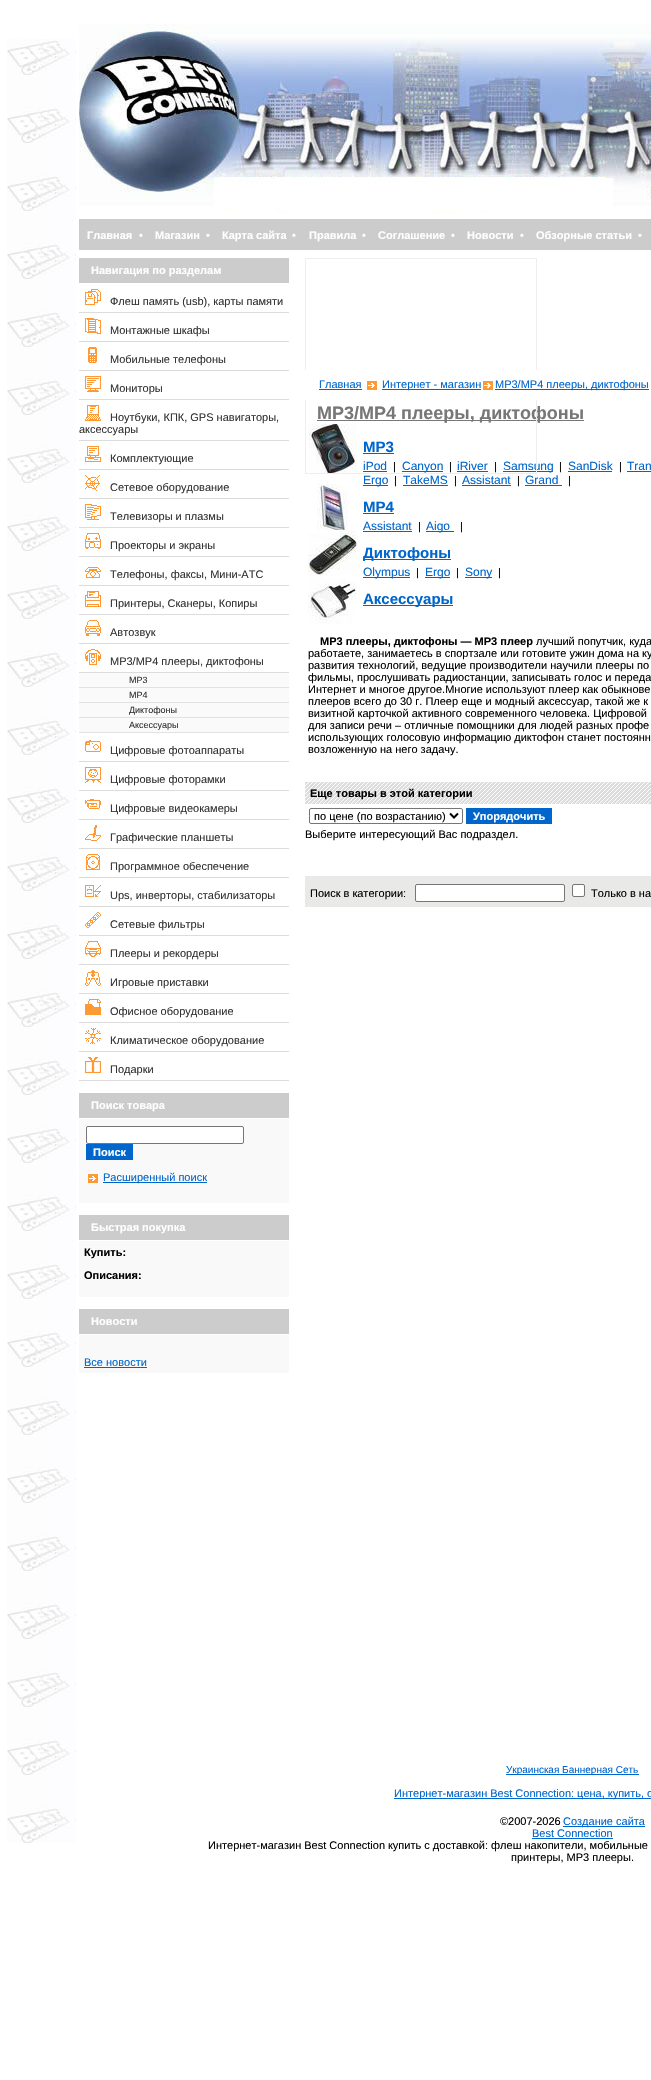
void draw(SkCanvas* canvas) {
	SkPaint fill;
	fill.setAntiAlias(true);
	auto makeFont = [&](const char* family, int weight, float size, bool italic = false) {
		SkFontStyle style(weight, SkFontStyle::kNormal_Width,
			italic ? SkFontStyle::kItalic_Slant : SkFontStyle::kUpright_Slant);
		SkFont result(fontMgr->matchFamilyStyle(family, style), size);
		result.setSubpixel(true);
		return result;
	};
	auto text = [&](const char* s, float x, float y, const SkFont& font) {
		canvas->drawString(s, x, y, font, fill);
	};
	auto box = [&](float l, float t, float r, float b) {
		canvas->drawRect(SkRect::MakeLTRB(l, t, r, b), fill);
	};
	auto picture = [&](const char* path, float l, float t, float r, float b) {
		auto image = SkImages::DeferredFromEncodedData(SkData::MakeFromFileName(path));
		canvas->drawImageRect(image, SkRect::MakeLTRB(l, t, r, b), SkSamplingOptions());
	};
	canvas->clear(0xFFFFFFFF);
	picture("image0.png", 7, 39, 76, 1843);
	picture("image1.png", 79, 24, 651, 213);
	fill.setColor(0xFFCCCCCC);
	box(79, 219, 651, 250);
	box(79, 258, 289, 283);
	fill.setColor(0xFFDCDCDC);
	box(79, 312, 289, 313);
	picture("image2.png", 85, 289, 101, 305);
	box(79, 341, 289, 342);
	picture("image3.png", 85, 318, 101, 334);
	box(79, 370, 289, 371);
	picture("image4.png", 88, 347, 97, 363);
	box(79, 399, 289, 400);
	picture("image5.png", 85, 376, 101, 392);
	box(79, 440, 289, 441);
	picture("image6.png", 85, 405, 101, 421);
	box(79, 469, 289, 470);
	picture("image7.png", 85, 446, 101, 462);
	box(79, 498, 289, 499);
	picture("image8.png", 85, 475, 100, 491);
	box(79, 527, 289, 528);
	picture("image9.png", 85, 504, 101, 520);
	box(79, 556, 289, 557);
	picture("image10.png", 85, 533, 101, 549);
	box(79, 585, 289, 586);
	picture("image11.png", 85, 567, 101, 578);
	box(79, 614, 289, 615);
	picture("image12.png", 85, 591, 101, 607);
	box(79, 643, 289, 644);
	picture("image13.png", 85, 620, 101, 636);
	box(79, 672, 289, 673);
	picture("image14.png", 85, 649, 101, 665);
	fill.setColor(0xFFFAFAFA);
	box(79, 673, 289, 687);
	fill.setColor(0xFFE2E2E2);
	box(79, 687, 289, 688);
	fill.setColor(0xFFFAFAFA);
	box(79, 688, 289, 702);
	fill.setColor(0xFFE2E2E2);
	box(79, 702, 289, 703);
	fill.setColor(0xFFFAFAFA);
	box(79, 703, 289, 717);
	fill.setColor(0xFFE2E2E2);
	box(79, 717, 289, 718);
	fill.setColor(0xFFFAFAFA);
	box(79, 718, 289, 732);
	fill.setColor(0xFFE2E2E2);
	box(79, 732, 289, 733);
	fill.setColor(0xFFDCDCDC);
	box(79, 761, 289, 762);
	picture("image15.png", 85, 740, 101, 752);
	box(79, 790, 289, 791);
	picture("image16.png", 85, 767, 101, 783);
	box(79, 819, 289, 820);
	picture("image17.png", 85, 799, 101, 809);
	box(79, 848, 289, 849);
	picture("image18.png", 85, 825, 101, 841);
	box(79, 877, 289, 878);
	picture("image19.png", 86, 854, 100, 870);
	box(79, 906, 289, 907);
	picture("image20.png", 85, 885, 101, 897);
	box(79, 935, 289, 936);
	picture("image21.png", 85, 912, 101, 928);
	box(79, 964, 289, 965);
	picture("image22.png", 85, 941, 101, 957);
	box(79, 993, 289, 994);
	picture("image23.png", 85, 970, 101, 986);
	box(79, 1022, 289, 1023);
	picture("image24.png", 85, 999, 101, 1015);
	box(79, 1051, 289, 1052);
	picture("image25.png", 85, 1028, 101, 1044);
	box(79, 1080, 289, 1081);
	picture("image26.png", 85, 1057, 101, 1073);
	fill.setColor(0xFFCCCCCC);
	box(79, 1093, 289, 1118);
	fill.setColor(0xFFF9F9F9);
	box(79, 1119, 289, 1203);
	fill.setColor(0xFFFFFFFF);
	canvas->drawRoundRect(SkRect::MakeLTRB(86.5f, 1126.5f, 243.5f, 1143.5f), 1.5f, 1.5f, fill);
	fill.setStyle(SkPaint::kStroke_Style);
	fill.setStrokeWidth(1);
	fill.setColor(0xFF767676);
	canvas->drawRoundRect(SkRect::MakeLTRB(86.5f, 1126.5f, 243.5f, 1143.5f), 1.5f, 1.5f, fill);
	fill.setStyle(SkPaint::kFill_Style);
	fill.setColor(0xFF0066CC);
	box(86, 1144, 133, 1160);
	picture("image27.png", 88, 1174, 98, 1183);
	box(103, 1182, 207, 1183);
	fill.setColor(0xFFCCCCCC);
	box(79, 1215, 289, 1240);
	fill.setColor(0xFFF9F9F9);
	box(79, 1241, 289, 1297);
	fill.setColor(0xFFCCCCCC);
	box(79, 1309, 289, 1334);
	fill.setColor(0xFFF9F9F9);
	box(79, 1335, 289, 1373);
	fill.setColor(0xFF0066CC);
	box(84, 1367, 147, 1368);
	fill.setColor(0xFF777777);
	box(317, 420, 584, 421);
	picture("image28.png", 308, 424, 357, 473);
	fill.setColor(0xFF0066CC);
	box(363, 453, 394, 454);
	box(363, 471, 387, 472);
	box(402, 471, 443, 472);
	box(457, 471, 488, 472);
	box(503, 471, 553, 472);
	box(568, 471, 612, 472);
	box(627, 471, 651, 472);
	box(363, 485, 388, 486);
	box(403, 485, 448, 486);
	box(462, 485, 511, 486);
	box(525, 485, 562, 486);
	picture("image29.png", 317, 484, 348, 530);
	box(363, 513, 394, 514);
	box(363, 531, 412, 532);
	box(426, 531, 454, 532);
	picture("image30.png", 308, 530, 358, 578);
	box(363, 559, 451, 560);
	box(363, 577, 410, 578);
	box(425, 577, 450, 578);
	box(465, 577, 492, 578);
	picture("image31.png", 308, 576, 356, 624);
	box(363, 605, 453, 606);
	picture("image32.png", 305, 782, 651, 804);
	fill.setStyle(SkPaint::kStroke_Style);
	fill.setColor(0xFF767676);
	canvas->drawRoundRect(SkRect::MakeLTRB(309.5f, 808.5f, 462.5f, 823.5f), 1.5f, 1.5f, fill);
	fill.setStrokeWidth(2);
	fill.setColor(0xFF000000);
	canvas->drawPath(SkPathBuilder().moveTo(450, 813.5f).lineTo(454, 817.5f).lineTo(458, 813.5f).detach(), fill);
	fill.setStyle(SkPaint::kFill_Style);
	fill.setColor(0xFF0066CC);
	box(466, 808, 552, 824);
	fill.setColor(0xFFE9E9E8);
	box(305, 876, 651, 907);
	fill.setColor(0xFFFFFFFF);
	canvas->drawRoundRect(SkRect::MakeLTRB(415.5f, 884.5f, 564.5f, 901.5f), 1.5f, 1.5f, fill);
	fill.setStyle(SkPaint::kStroke_Style);
	fill.setStrokeWidth(1);
	fill.setColor(0xFF767676);
	canvas->drawRoundRect(SkRect::MakeLTRB(415.5f, 884.5f, 564.5f, 901.5f), 1.5f, 1.5f, fill);
	fill.setStyle(SkPaint::kFill_Style);
	fill.setColor(0xFFFFFFFF);
	canvas->drawRoundRect(SkRect::MakeLTRB(572.5f, 884.5f, 584.5f, 896.5f), 1.5f, 1.5f, fill);
	fill.setStyle(SkPaint::kStroke_Style);
	fill.setColor(0xFF767676);
	canvas->drawRoundRect(SkRect::MakeLTRB(572.5f, 884.5f, 584.5f, 896.5f), 1.5f, 1.5f, fill);
	fill.setStyle(SkPaint::kFill_Style);
	fill.setColor(0xFF0066CC);
	box(506, 1774, 639, 1775);
	box(394, 1798, 651, 1799);
	box(563, 1826, 645, 1827);
	box(532, 1838, 613, 1839);
	auto font1 = makeFont("Liberation Sans", 700, 11);
	fill.setColor(0xFFFFFFFF);
	text("Главная", 87, 239, font1);
	auto font2 = makeFont("Liberation Sans", 400, 11);
	text("•", 139, 239, font2);
	text("Магазин", 155, 239, font1);
	text("•", 206, 239, font2);
	text("Карта сайта", 222, 239, font1);
	text("•", 292, 239, font2);
	text("Правила", 309, 239, font1);
	text("•", 362, 239, font2);
	text("Соглашение", 378, 239, font1);
	text("•", 451, 239, font2);
	text("Новости", 467, 239, font1);
	text("•", 520, 239, font2);
	text("Обзорные статьи", 536, 239, font1);
	text("•", 638, 239, font2);
	text("Навигация по разделам", 91, 274, font1);
	fill.setColor(0xFF333333);
	text("Флеш память (usb), карты памяти", 110, 305, font2);
	text("Монтажные шкафы", 110, 334, font2);
	text("Мобильные телефоны", 110, 363, font2);
	text("Мониторы", 110, 392, font2);
	text("Ноутбуки, КПК, GPS навигаторы,", 110, 421, font2);
	text("аксессуары", 79, 433, font2);
	text("Комплектующие", 110, 462, font2);
	text("Сетевое оборудование", 110, 491, font2);
	text("Телевизоры и плазмы", 110, 520, font2);
	text("Проекторы и экраны", 110, 549, font2);
	text("Телефоны, факсы, Мини-АТС", 110, 578, font2);
	text("Принтеры, Сканеры, Копиры", 110, 607, font2);
	text("Автозвук", 110, 636, font2);
	text("MP3/MP4 плееры, диктофоны", 110, 665, font2);
	auto font3 = makeFont("Liberation Sans", 400, 9);
	text("MP3", 129, 683, font3);
	text("MP4", 129, 698, font3);
	text("Диктофоны", 129, 713, font3);
	text("Аксессуары", 129, 728, font3);
	text("Цифровые фотоаппараты", 110, 754, font2);
	text("Цифровые фоторамки", 110, 783, font2);
	text("Цифровые видеокамеры", 110, 812, font2);
	text("Графические планшеты", 110, 841, font2);
	text("Программное обеспечение", 110, 870, font2);
	text("Ups, инверторы, стабилизаторы", 110, 899, font2);
	text("Сетевые фильтры", 110, 928, font2);
	text("Плееры и рекордеры", 110, 957, font2);
	text("Игровые приставки", 110, 986, font2);
	text("Офисное оборудование", 110, 1015, font2);
	text("Климатическое оборудование", 110, 1044, font2);
	text("Подарки", 110, 1073, font2);
	fill.setColor(0xFFFFFFFF);
	text("Поиск товара", 91, 1109, font1);
	text("Поиск", 93, 1156, font1);
	fill.setColor(0xFF0066CC);
	text("Расширенный поиск", 103, 1181, font2);
	fill.setColor(0xFFFFFFFF);
	text("Быстрая покупка", 91, 1231, font1);
	fill.setColor(0xFF000000);
	text("Купить:", 84, 1256, font1);
	text("Описания:", 84, 1279, font1);
	fill.setColor(0xFFFFFFFF);
	text("Новости", 91, 1325, font1);
	fill.setColor(0xFF0066CC);
	text("Все новости", 84, 1366, font2);
	auto font4 = makeFont("Liberation Sans", 700, 18);
	fill.setColor(0xFF777777);
	text("MP3/MP4 плееры, диктофоны", 317, 419, font4);
	auto font5 = makeFont("Liberation Sans", 700, 15);
	fill.setColor(0xFF0066CC);
	text("MP3", 363, 452, font5);
	auto font6 = makeFont("Liberation Sans", 400, 12);
	text("iPod", 363, 470, font6);
	fill.setColor(0xFF000000);
	text("|", 393, 470, font2);
	fill.setColor(0xFF0066CC);
	text("Canyon", 402, 470, font6);
	fill.setColor(0xFF000000);
	text("|", 449, 470, font2);
	fill.setColor(0xFF0066CC);
	text("iRiver", 457, 470, font6);
	fill.setColor(0xFF000000);
	text("|", 494, 470, font2);
	fill.setColor(0xFF0066CC);
	text("Samsung", 503, 470, font6);
	fill.setStyle(SkPaint::kStroke_Style);
	fill.setColor(0xFFEEEEEE);
	canvas->drawRect(SkRect::MakeLTRB(305.5f, 258.5f, 536.5f, 473.5f), fill);
	fill.setStyle(SkPaint::kFill_Style);
	fill.setColor(0xFFFFFFFF);
	box(305, 370, 537, 400);
	fill.setColor(0xFF0066CC);
	box(495, 389, 649, 390);
	text("MP3/MP4 плееры, диктофоны", 495, 388, font2);
	picture("image27.png", 483, 381, 493, 390);
	box(382, 389, 481, 390);
	text("Интернет - магазин", 382, 388, font2);
	picture("image27.png", 367, 381, 377, 390);
	text("Главная", 319, 388, font2);
	box(319, 389, 362, 390);
	fill.setColor(0xFF000000);
	text("|", 559, 470, font2);
	fill.setColor(0xFF0066CC);
	text("SanDisk", 568, 470, font6);
	fill.setColor(0xFF000000);
	text("|", 619, 470, font2);
	fill.setColor(0xFF0066CC);
	text("Tran", 627, 470, font6);
	text("Ergo", 363, 484, font6);
	fill.setColor(0xFF000000);
	text("|", 394, 484, font2);
	fill.setColor(0xFF0066CC);
	text("TakeMS", 403, 484, font6);
	fill.setColor(0xFF000000);
	text("|", 454, 484, font2);
	fill.setColor(0xFF0066CC);
	text("Assistant", 462, 484, font6);
	fill.setColor(0xFF000000);
	text("|", 517, 484, font2);
	fill.setColor(0xFF0066CC);
	text("Grand", 525, 484, font6);
	fill.setColor(0xFF000000);
	text("|", 568, 484, font2);
	fill.setColor(0xFF0066CC);
	text("MP4", 363, 512, font5);
	text("Assistant", 363, 530, font6);
	fill.setColor(0xFF000000);
	text("|", 418, 530, font2);
	fill.setColor(0xFF0066CC);
	text("Aigo", 426, 530, font6);
	fill.setColor(0xFF000000);
	text("|", 460, 530, font2);
	fill.setColor(0xFF0066CC);
	text("Диктофоны", 363, 558, font5);
	text("Olympus", 363, 576, font6);
	fill.setColor(0xFF000000);
	text("|", 416, 576, font2);
	fill.setColor(0xFF0066CC);
	text("Ergo", 425, 576, font6);
	fill.setColor(0xFF000000);
	text("|", 456, 576, font2);
	fill.setColor(0xFF0066CC);
	text("Sony", 465, 576, font6);
	fill.setColor(0xFF000000);
	text("|", 498, 576, font2);
	fill.setColor(0xFF0066CC);
	text("Аксессуары", 363, 604, font5);
	fill.setColor(0xFF000000);
	text("MP3 плееры, диктофоны — MP3 плеер", 320, 645, font1);
	text("лучший попутчик, куда", 536, 645, font2);
	text("работаете, занимаетесь в спортзале или готовите ужин дома на ку", 308, 657, font2);
	text("развития технологий, ведущие производители научили плееры по", 308, 669, font2);
	text("фильмы, прослушивать радиостанции, записывать голос и переда", 308, 681, font2);
	text("Интернет и многое другое.Многие используют плеер как обыкнове", 308, 693, font2);
	text("плееров всего до 30 г. Плеер еще и модный аксессуар, такой же к", 308, 705, font2);
	text("визитной карточкой активного современного человека. Цифровой", 308, 717, font2);
	text("для записи речи – отличные помощники для людей разных профе", 308, 729, font2);
	text("использующих голосовую информацию диктофон станет постоянн", 308, 741, font2);
	text("возложенную на него задачу.", 308, 753, font2);
	text("Еще товары в этой категории", 310, 797, font1);
	text("по цене (по возрастанию)", 314, 820, font2);
	fill.setColor(0xFFFFFFFF);
	text("Упорядочить", 473, 820, font1);
	fill.setColor(0xFF000000);
	text("Выберите интересующий Вас подраздел.", 305, 838, font2);
	text("Поиск в категории:", 310, 897, font2);
	text("Только в на", 591, 897, font2);
	auto font7 = makeFont("Liberation Sans", 400, 10);
	fill.setColor(0xFF0066CC);
	text("Украинская Баннерная Сеть", 506, 1773, font7);
	text("Интернет-магазин Best Connection: цена, купить, о", 394, 1797, font2);
	fill.setColor(0xFF000000);
	text("©2007-2026", 500, 1825, font2);
	fill.setColor(0xFF0066CC);
	text("Создание сайта", 563, 1825, font2);
	text("Best Connection", 532, 1837, font2);
	fill.setColor(0xFF000000);
	text("Интернет-магазин Best Connection купить с доставкой: флеш накопители, мобильные", 208, 1849, font2);
	text("принтеры, MP3 плееры.", 511, 1861, font2);
}
